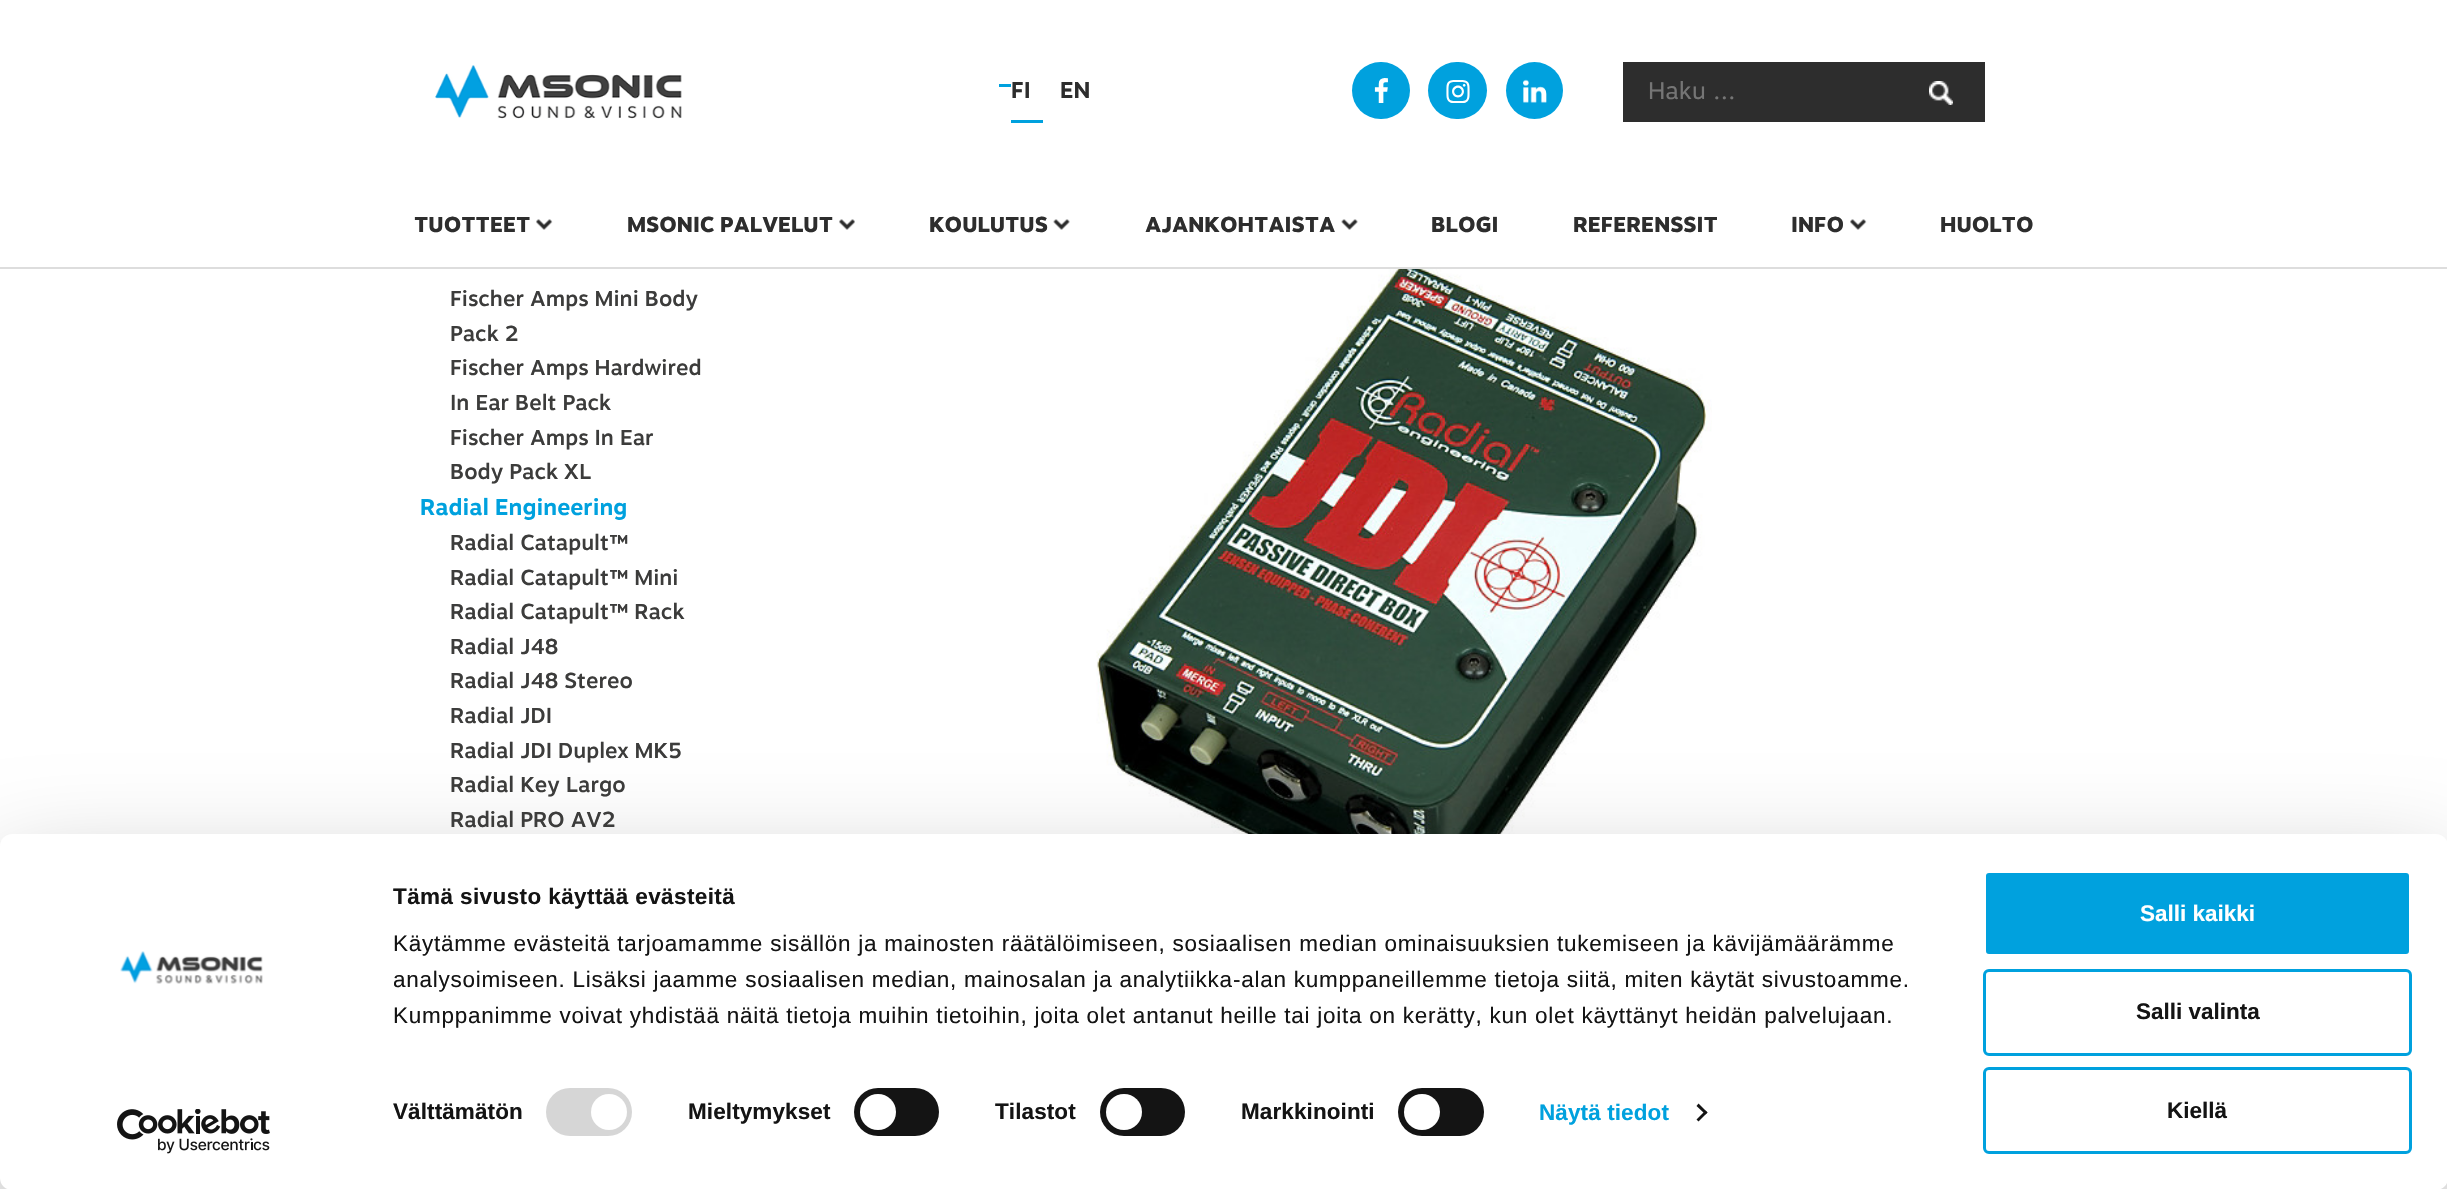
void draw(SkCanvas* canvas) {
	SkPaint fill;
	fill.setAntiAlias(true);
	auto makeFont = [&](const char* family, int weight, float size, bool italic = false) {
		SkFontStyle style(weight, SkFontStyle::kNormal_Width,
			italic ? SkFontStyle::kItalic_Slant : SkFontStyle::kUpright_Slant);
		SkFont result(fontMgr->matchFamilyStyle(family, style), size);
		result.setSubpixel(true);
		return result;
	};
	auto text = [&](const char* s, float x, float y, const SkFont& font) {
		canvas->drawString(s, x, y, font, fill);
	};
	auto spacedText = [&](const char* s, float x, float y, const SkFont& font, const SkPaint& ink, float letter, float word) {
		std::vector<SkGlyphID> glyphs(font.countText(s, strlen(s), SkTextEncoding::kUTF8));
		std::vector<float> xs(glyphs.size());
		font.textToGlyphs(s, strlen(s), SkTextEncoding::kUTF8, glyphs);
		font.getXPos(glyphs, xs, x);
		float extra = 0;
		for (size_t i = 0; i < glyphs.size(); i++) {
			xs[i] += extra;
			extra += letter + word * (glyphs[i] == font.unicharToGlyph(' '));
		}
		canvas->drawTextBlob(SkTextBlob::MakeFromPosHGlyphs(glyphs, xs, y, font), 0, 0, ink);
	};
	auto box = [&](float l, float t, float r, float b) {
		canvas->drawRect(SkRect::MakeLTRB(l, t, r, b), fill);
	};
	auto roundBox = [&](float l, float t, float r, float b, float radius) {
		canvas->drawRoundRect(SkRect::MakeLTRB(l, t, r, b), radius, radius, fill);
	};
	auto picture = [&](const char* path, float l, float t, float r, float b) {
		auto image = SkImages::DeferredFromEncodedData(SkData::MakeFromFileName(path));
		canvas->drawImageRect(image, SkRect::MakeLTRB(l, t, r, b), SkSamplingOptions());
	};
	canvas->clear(0xFFFFFFFF);
	fill.setColor(0xFFDDDDDD);
	box(0, 267, 2447, 269);
	picture("image0.png", 435, 65, 682, 119);
	fill.setColor(0xFF00A1DE);
	box(999, 84, 1011, 87);
	box(1011, 120, 1043, 123);
	roundBox(1352, 62, 1410, 119, 28.5f);
	picture("image1.png", 1374, 78, 1388, 103);
	roundBox(1428, 62, 1487, 119, 28.5f);
	picture("image2.png", 1446, 80, 1470, 103);
	canvas->drawCircle(1534.5f, 90.5f, 28.5f, fill);
	picture("image3.png", 1523, 79, 1547, 103);
	fill.setColor(0xFF2D2D2D);
	box(1623, 62, 1985, 122);
	picture("image4.png", 1929, 81, 1953, 105);
	picture("image5.png", 536, 219, 553, 230);
	picture("image6.png", 839, 219, 855, 230);
	picture("image7.png", 1053, 219, 1070, 230);
	picture("image7.png", 1341, 219, 1358, 230);
	picture("image8.png", 1850, 219, 1867, 230);
	picture("image9.png", 1096, 269, 1712, 834);
	fill.setColor(0x4D000000);
	fill.setMaskFilter(SkMaskFilter::MakeBlur(kNormal_SkBlurStyle, 52.5f));
	canvas->drawRoundRect(SkRect::MakeLTRB(0, 879, 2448, 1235), 12, 12, fill);
	fill.setMaskFilter(nullptr);
	fill.setColor(0xFFFFFFFF);
	roundBox(0, 834, 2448, 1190, 12);
	picture("image10.png", 120, 951, 263, 984);
	picture("image11.png", 117, 1109, 270, 1154);
	fill.setColor(0xFFD6D6D6);
	roundBox(546, 1088, 632, 1136, 24);
	fill.setColor(0xFFFFFFFF);
	canvas->drawCircle(609, 1112, 18, fill);
	fill.setColor(0xFF141414);
	roundBox(854, 1088, 939, 1136, 24);
	fill.setColor(0xFFFFFFFF);
	canvas->drawCircle(878, 1112, 18, fill);
	fill.setColor(0xFF141414);
	roundBox(1100, 1088, 1185, 1136, 24);
	fill.setColor(0xFFFFFFFF);
	canvas->drawCircle(1124, 1112, 18, fill);
	fill.setColor(0xFF141414);
	roundBox(1398, 1088, 1484, 1136, 24);
	fill.setColor(0xFFFFFFFF);
	canvas->drawCircle(1422, 1112, 18, fill);
	fill.setColor(0xFF141414);
	canvas->drawPath(SkPathBuilder().moveTo(1698.5f, 1103.5f).lineTo(1707.5f, 1112.5f).lineTo(1705.5f, 1114.5f).lineTo(1696.5f, 1106).close().detach(), fill);
	canvas->drawPath(SkPathBuilder().moveTo(1705.5f, 1110.5f).lineTo(1707.5f, 1112.5f).lineTo(1698.5f, 1121.5f).lineTo(1696.5f, 1119.5f).close().detach(), fill);
	fill.setColor(0xFF00A1DE);
	canvas->drawRoundRect(SkRect::MakeLTRB(1984.5f, 871.5f, 2410.5f, 955.5f), 4.5f, 4.5f, fill);
	fill.setStyle(SkPaint::kStroke_Style);
	fill.setStrokeWidth(3);
	fill.setColor(0xFFFFFFFF);
	canvas->drawRoundRect(SkRect::MakeLTRB(1984.5f, 871.5f, 2410.5f, 955.5f), 4.5f, 4.5f, fill);
	fill.setColor(0xFF00A1DE);
	canvas->drawRoundRect(SkRect::MakeLTRB(1984.5f, 970.5f, 2410.5f, 1054.5f), 4.5f, 4.5f, fill);
	canvas->drawRoundRect(SkRect::MakeLTRB(1984.5f, 1068.5f, 2410.5f, 1152.5f), 4.5f, 4.5f, fill);
	auto font1 = makeFont("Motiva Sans", 700, 22.75f);
	fill.setStyle(SkPaint::kFill_Style);
	fill.setColor(0xFF2D2D2D);
	text("FI", 1011, 98, font1);
	text("EN", 1060, 98, font1);
	auto font2 = makeFont("Motiva Sans", 400, 24);
	fill.setColor(0xFF757575);
	text("Haku ...", 1648, 99, font2);
	auto font3 = makeFont("Motiva Sans", 800, 21.6f);
	fill.setColor(0xFF2D2D2D);
	text("TUOTTEET", 414, 232, font3);
	text("MSONIC PALVELUT", 627, 232, font3);
	text("KOULUTUS", 929, 232, font3);
	text("AJANKOHTAISTA", 1145, 232, font3);
	text("BLOGI", 1431, 232, font3);
	text("REFERENSSIT", 1573, 232, font3);
	text("INFO", 1791, 232, font3);
	text("HUOLTO", 1940, 232, font3);
	auto font4 = makeFont("Motiva Sans", 500, 21.6f);
	fill.setColor(0xFF3C3C3B);
	text("Fischer Amps Mini Body", 450, 306, font4);
	text("Pack 2", 450, 341, font4);
	text("Fischer Amps Hardwired", 450, 375, font4);
	text("In Ear Belt Pack", 450, 410, font4);
	text("Fischer Amps In Ear", 450, 445, font4);
	text("Body Pack XL", 450, 479, font4);
	fill.setColor(0xFF00A1DE);
	text("Radial Engineering", 420, 515, font1);
	fill.setColor(0xFF3C3C3B);
	text("Radial Catapult™", 450, 550, font4);
	text("Radial Catapult™ Mini", 450, 585, font4);
	text("Radial Catapult™ Rack", 450, 619, font4);
	text("Radial J48", 450, 654, font4);
	text("Radial J48 Stereo", 450, 688, font4);
	text("Radial JDI", 450, 723, font4);
	text("Radial JDI Duplex MK5", 450, 758, font4);
	text("Radial Key Largo", 450, 792, font4);
	text("Radial PRO AV2", 450, 827, font4);
	auto font5 = makeFont("Liberation Sans", 700, 22.5f);
	fill.setColor(0xFF141414);
	spacedText("Tämä sivusto käyttää evästeitä", 393, 904, font5, fill, 0.4f, 0);
	auto font6 = makeFont("Liberation Sans", 400, 22.5f);
	spacedText("Käytämme evästeitä tarjoamamme sisällön ja mainosten räätälöimiseen, sosiaalisen median ominaisuuksien tukemiseen ja kävijämäärämme", 393, 951, font6, fill, 0.75f, 0);
	spacedText("analysoimiseen. Lisäksi jaamme sosiaalisen median, mainosalan ja analytiikka-alan kumppaneillemme tietoja siitä, miten käytät sivustoamme.", 393, 987, font6, fill, 0.75f, 0);
	spacedText("Kumppanimme voivat yhdistää näitä tietoja muihin tietoihin, joita olet antanut heille tai joita on kerätty, kun olet käyttänyt heidän palvelujaan.", 393, 1023, font6, fill, 0.75f, 0);
	spacedText("Välttämätön", 393, 1119, font5, fill, 0.1f, 0);
	spacedText("Mieltymykset", 688, 1119, font5, fill, 0.1f, 0);
	spacedText("Tilastot", 995, 1119, font5, fill, 0.1f, 0);
	spacedText("Markkinointi", 1241, 1119, font5, fill, 0.1f, 0);
	fill.setColor(0xFF00A1DE);
	spacedText("Näytä tiedot", 1539, 1120, font5, fill, 0.1f, 0);
	fill.setColor(0xFFFFFFFF);
	text("Salli kaikki", 2140, 921, font5);
	fill.setColor(0xFF141414);
	text("Salli valinta", 2136, 1019, font5);
	text("Kiellä", 2167, 1118, font5);
}
